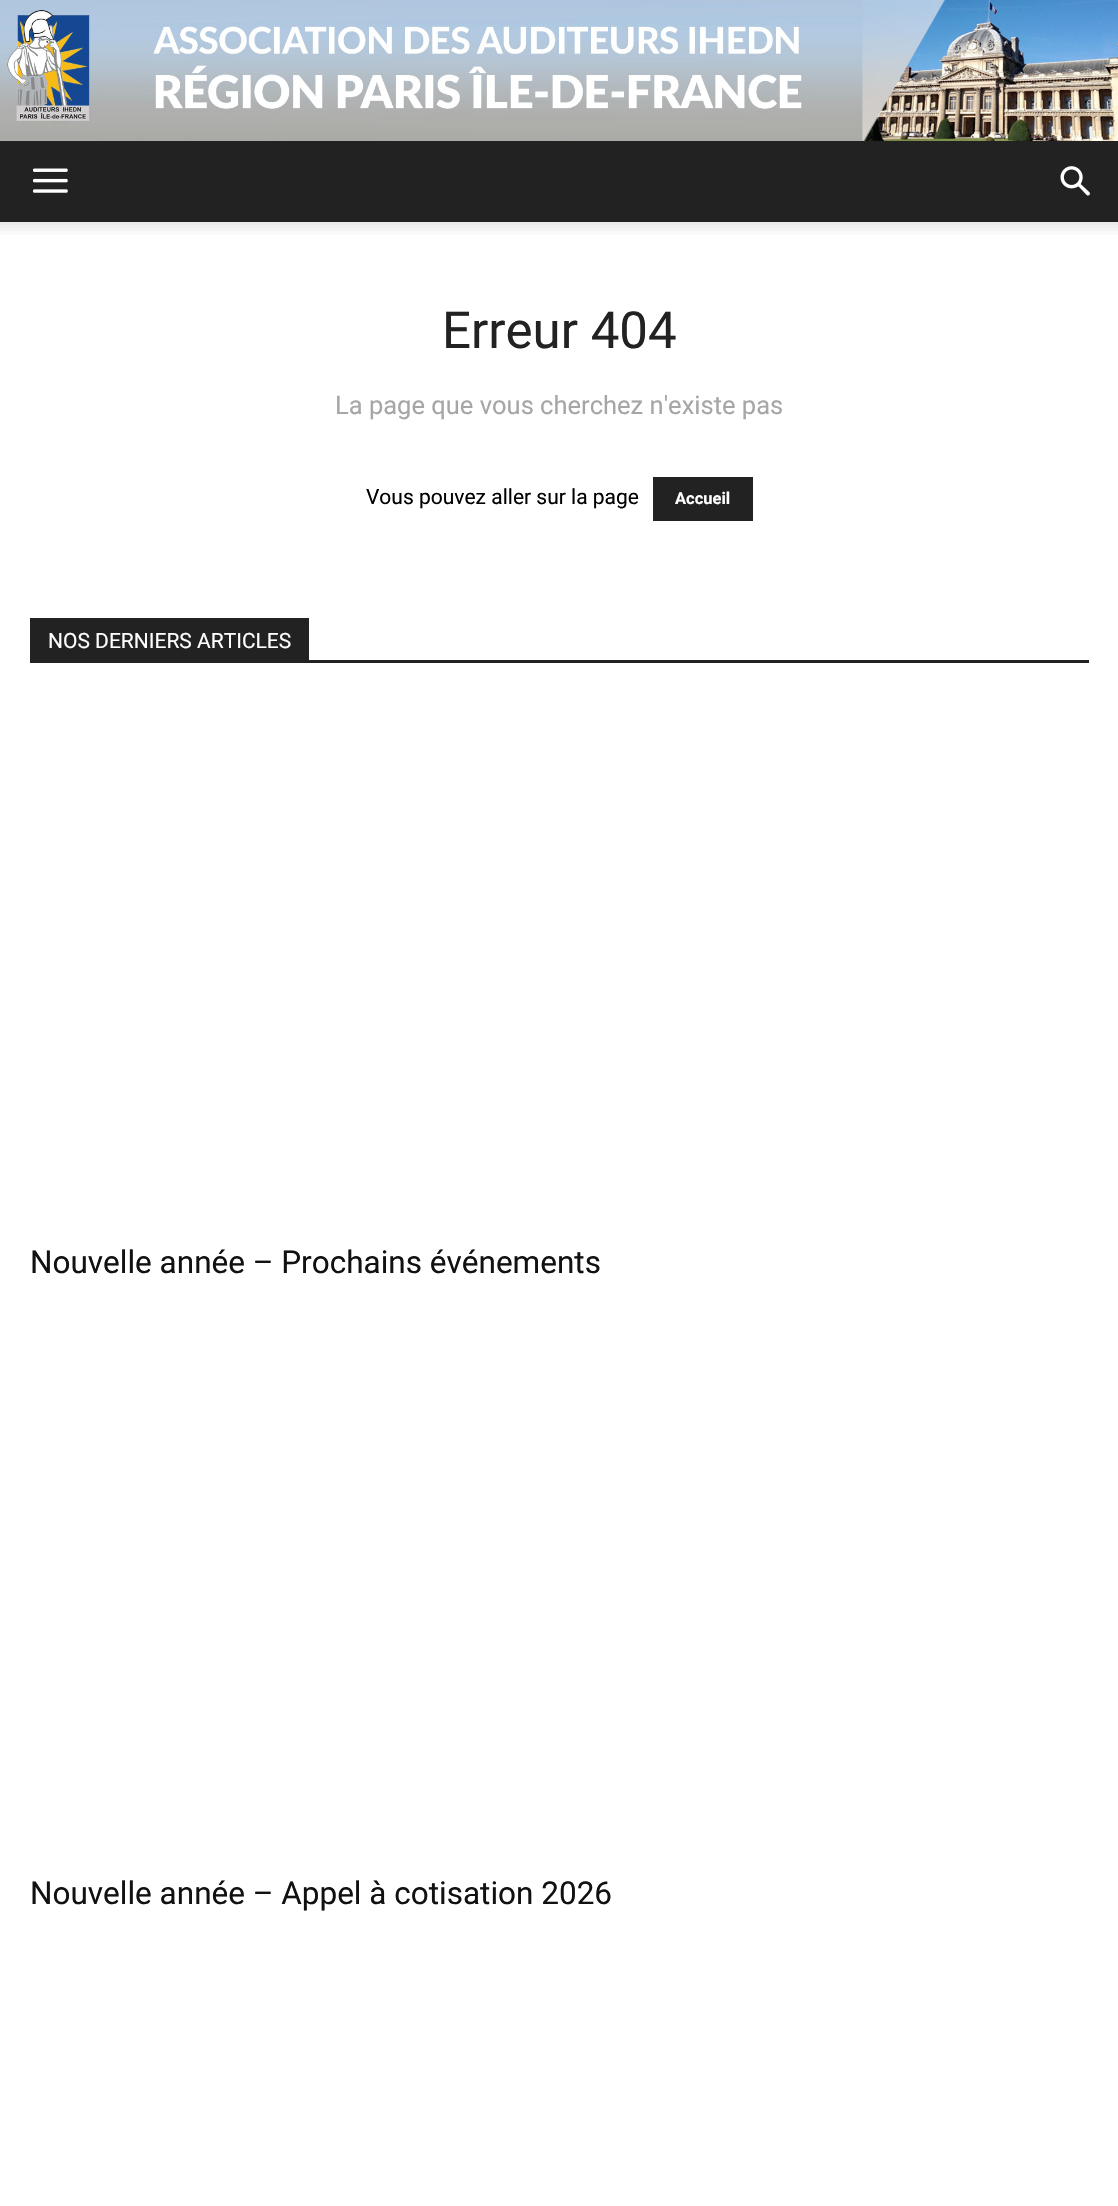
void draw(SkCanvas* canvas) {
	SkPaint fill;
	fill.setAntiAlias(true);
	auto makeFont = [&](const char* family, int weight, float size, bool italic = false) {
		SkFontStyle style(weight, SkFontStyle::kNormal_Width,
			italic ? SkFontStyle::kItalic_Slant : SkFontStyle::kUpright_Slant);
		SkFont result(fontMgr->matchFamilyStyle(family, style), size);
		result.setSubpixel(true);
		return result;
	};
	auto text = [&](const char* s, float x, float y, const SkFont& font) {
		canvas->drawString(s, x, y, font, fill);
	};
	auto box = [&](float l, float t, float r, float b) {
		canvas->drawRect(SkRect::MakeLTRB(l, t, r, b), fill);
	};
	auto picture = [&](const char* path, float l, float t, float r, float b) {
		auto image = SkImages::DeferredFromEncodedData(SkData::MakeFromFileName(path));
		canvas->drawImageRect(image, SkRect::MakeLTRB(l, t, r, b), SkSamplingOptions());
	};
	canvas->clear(0xFFFFFFFF);
	picture("image0.png", 0, 0, 1118, 141);
	fill.setColor(0xFF222222);
	box(0, 141, 1118, 222);
	picture("image1.png", 33, 168, 68, 193);
	picture("image2.png", 1060, 166, 1090, 196);
	picture("image3.png", 0, 222, 1118, 235);
	box(653, 477, 753, 521);
	box(30, 660, 1089, 663);
	box(30, 618, 309, 660);
	auto font1 = makeFont("Roboto", 400, 51);
	text("Erreur 404", 442, 348, font1);
	auto font2 = makeFont("Roboto", 400, 25.5f);
	fill.setColor(0xFFA6A6A6);
	text("La page que vous cherchez n'existe pas", 335, 414, font2);
	auto font3 = makeFont("Roboto", 400, 21);
	fill.setColor(0xFF000000);
	text("Vous pouvez aller sur la page", 366, 504, font3);
	auto font4 = makeFont("Roboto", 700, 16.5f);
	fill.setColor(0xFFFFFFFF);
	text("Accueil", 675, 504, font4);
	text("NOS DERNIERS ARTICLES", 48, 648, font3);
	auto font5 = makeFont("Roboto", 400, 31.5f);
	fill.setColor(0xFF111111);
	text("Nouvelle année – Prochains événements", 30, 1273, font5);
	text("Nouvelle année – Appel à cotisation 2026", 30, 1904, font5);
}
